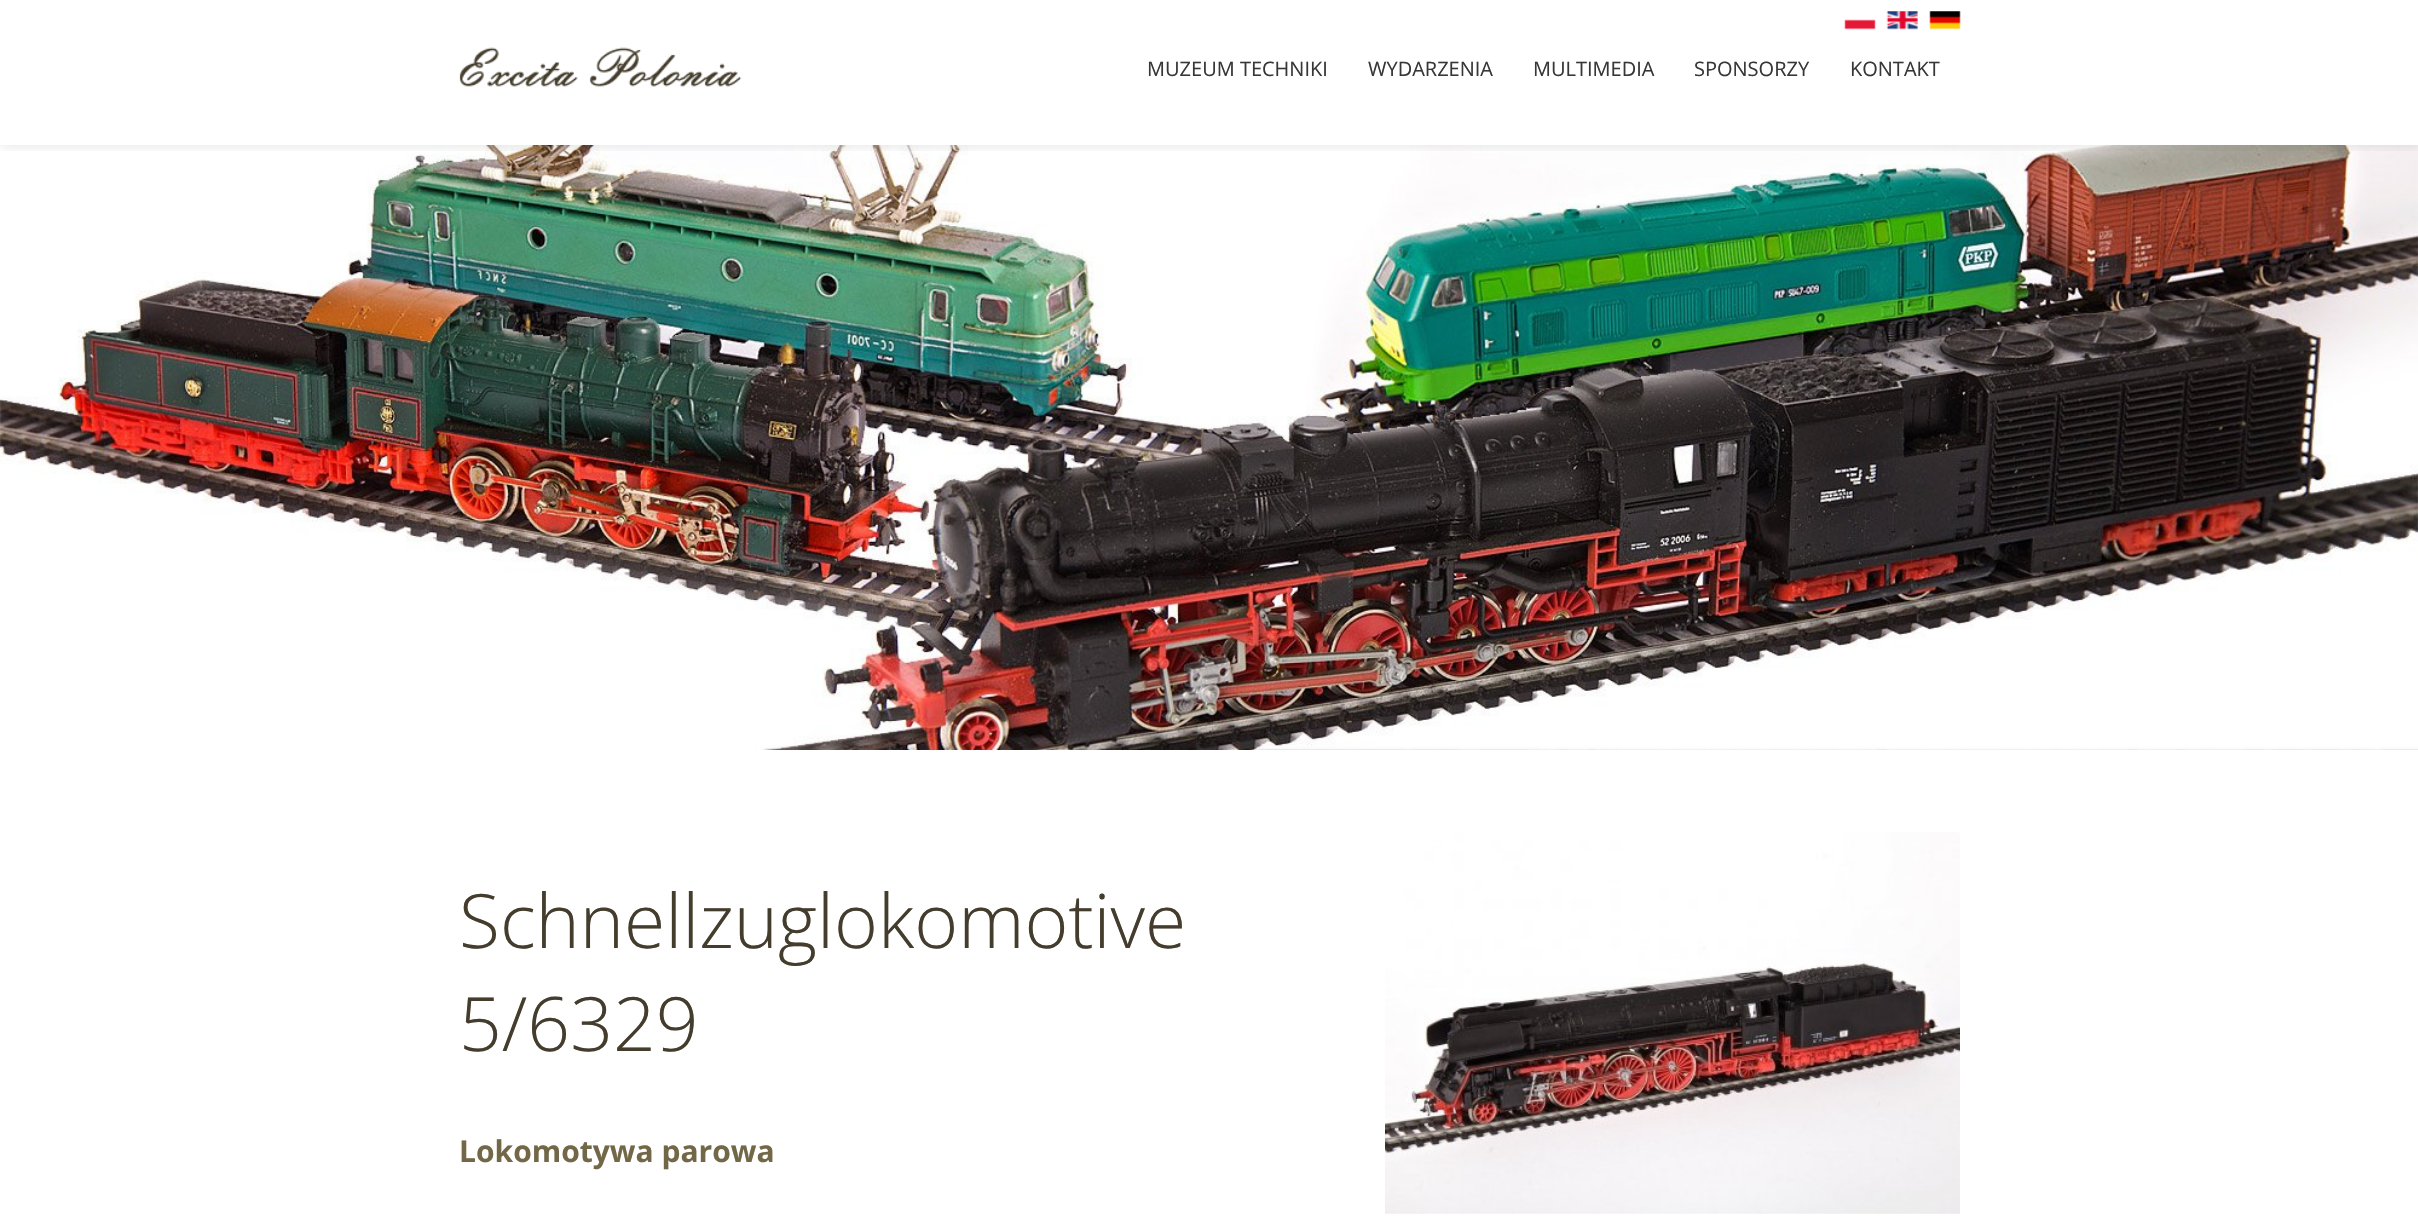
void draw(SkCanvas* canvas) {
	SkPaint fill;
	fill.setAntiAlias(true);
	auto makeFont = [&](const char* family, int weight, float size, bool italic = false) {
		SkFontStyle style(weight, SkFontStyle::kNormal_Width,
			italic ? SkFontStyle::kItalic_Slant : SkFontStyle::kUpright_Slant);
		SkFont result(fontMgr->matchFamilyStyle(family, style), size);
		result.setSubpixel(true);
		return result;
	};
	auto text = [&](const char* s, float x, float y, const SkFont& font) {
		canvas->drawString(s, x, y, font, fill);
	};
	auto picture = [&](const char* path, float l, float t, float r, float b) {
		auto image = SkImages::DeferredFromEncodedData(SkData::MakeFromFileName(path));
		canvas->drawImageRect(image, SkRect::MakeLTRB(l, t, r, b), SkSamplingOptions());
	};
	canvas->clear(0xFFFFFFFF);
	picture("image4.png", 0, 145, 2418, 750);
	canvas->save();
	canvas->clipRect(SkRect::MakeLTRB(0, 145, 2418, 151));
	fill.setColor(0x1A000000);
	fill.setMaskFilter(SkMaskFilter::MakeBlur(kNormal_SkBlurStyle, 6));
	canvas->drawRect(SkRect::MakeLTRB(1, 1, 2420, 146), fill);
	fill.setMaskFilter(nullptr);
	canvas->restore();
	picture("image0.png", 1844, 19, 1876, 30);
	picture("image1.png", 1886, 11, 1918, 30);
	picture("image2.png", 1929, 11, 1961, 30);
	picture("image3.png", 459, 47, 742, 87);
	picture("image5.png", 1385, 832, 1960, 1214);
	auto font1 = makeFont("Open Sans", 400, 20);
	fill.setColor(0xFF373737);
	text("MUZEUM TECHNIKI", 1147, 76, font1);
	text("WYDARZENIA", 1368, 76, font1);
	text("MULTIMEDIA", 1533, 76, font1);
	text("SPONSORZY", 1694, 76, font1);
	text("KONTAKT", 1850, 76, font1);
	auto font2 = makeFont("Open Sans", 300, 75);
	fill.setColor(0xFF443D2D);
	text("Schnellzuglokomotive", 459, 948, font2);
	text("5/6329", 459, 1051, font2);
	auto font3 = makeFont("Open Sans", 700, 30);
	fill.setColor(0xFF726847);
	text("Lokomotywa parowa", 459, 1162, font3);
}
